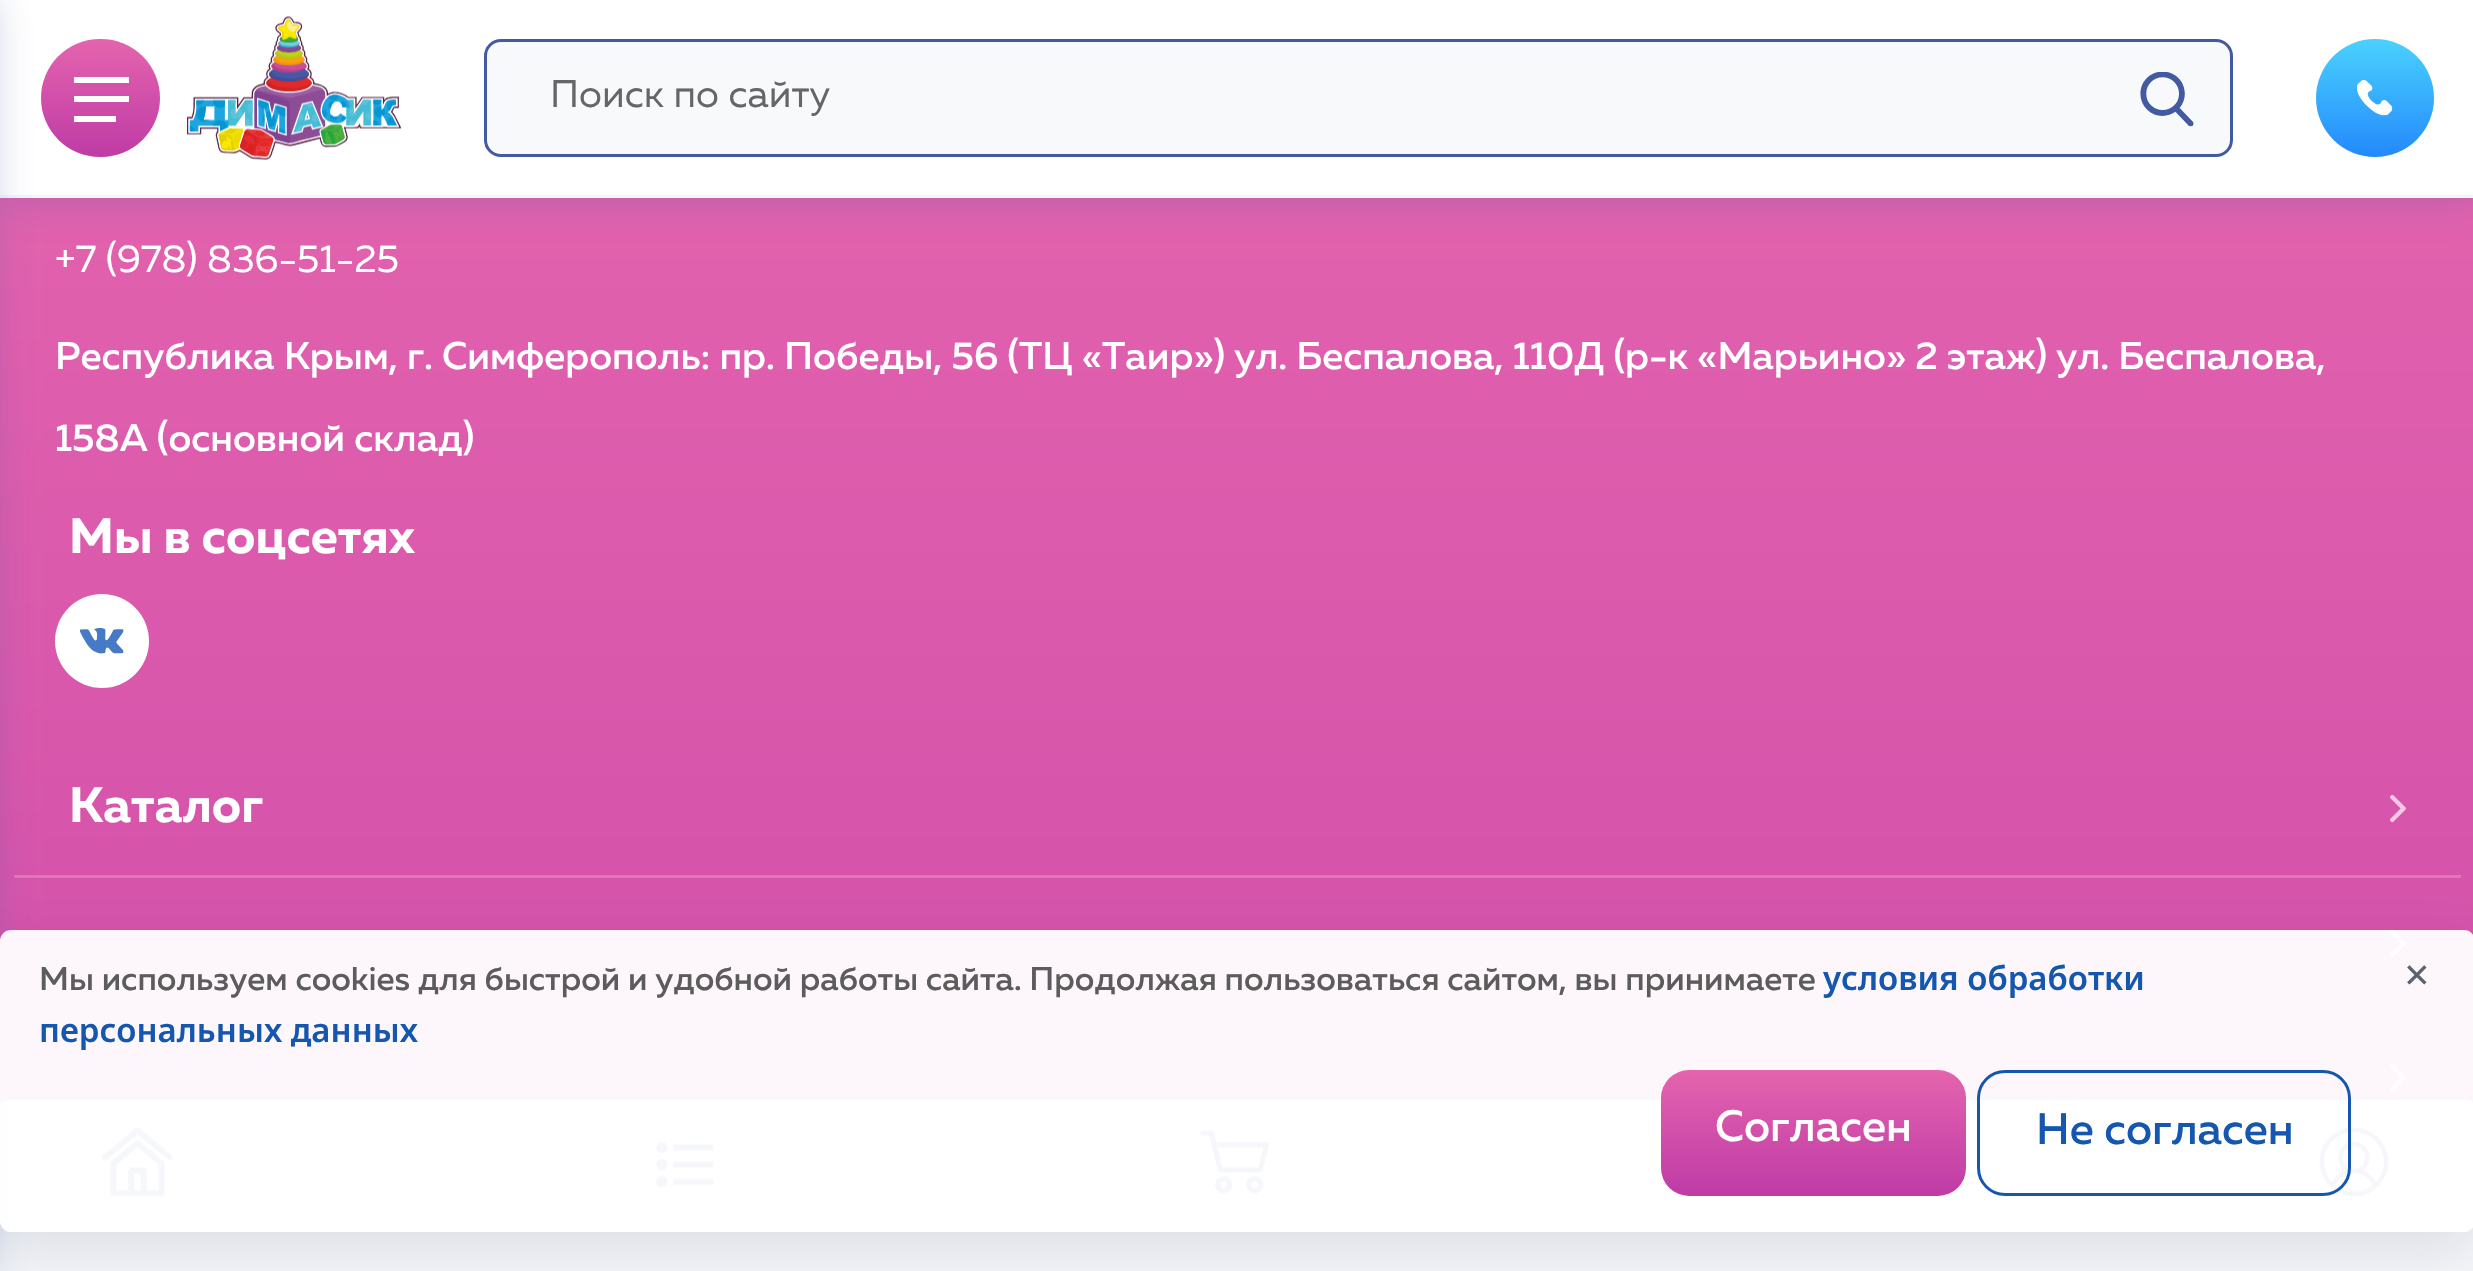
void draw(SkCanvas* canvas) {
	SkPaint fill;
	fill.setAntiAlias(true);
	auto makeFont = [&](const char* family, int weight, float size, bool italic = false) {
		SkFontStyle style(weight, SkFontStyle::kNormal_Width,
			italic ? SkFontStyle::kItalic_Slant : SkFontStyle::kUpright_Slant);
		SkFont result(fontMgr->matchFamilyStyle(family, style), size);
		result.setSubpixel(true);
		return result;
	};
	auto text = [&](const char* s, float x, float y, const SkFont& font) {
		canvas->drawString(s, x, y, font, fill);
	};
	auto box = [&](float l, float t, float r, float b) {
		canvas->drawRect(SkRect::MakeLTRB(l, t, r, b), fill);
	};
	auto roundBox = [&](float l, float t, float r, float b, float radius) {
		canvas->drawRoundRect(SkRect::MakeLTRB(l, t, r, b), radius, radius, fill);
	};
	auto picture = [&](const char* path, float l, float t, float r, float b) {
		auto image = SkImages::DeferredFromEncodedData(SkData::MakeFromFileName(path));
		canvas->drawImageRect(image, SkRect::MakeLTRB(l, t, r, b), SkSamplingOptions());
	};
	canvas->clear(0xFFFFFFFF);
	{
		const SkColor colors[] = {0xFFBF3BA6, 0xFFE464AE};
		const float stops[] = {0, 1};
		const SkPoint ends[] = {{1238, 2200}, {1238, 52}};
		fill.setShader(SkGradientShader::MakeLinear(ends, colors, stops, 2, SkTileMode::kClamp));
		fill.setAlpha(255);
	}
	box(0, 198, 2473, 1108);
	fill.setShader(nullptr);
	fill.setColor(0x4D435AA3);
	fill.setMaskFilter(SkMaskFilter::MakeBlur(kNormal_SkBlurStyle, 20.5f));
	canvas->drawRect(SkRect::MakeLTRB(0, 0, 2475, 198), fill);
	fill.setMaskFilter(nullptr);
	fill.setColor(0xFFFFFFFF);
	box(0, 0, 2473, 195);
	fill.setColor(0xFFF3F5F9);
	box(0, 195, 2473, 198);
	canvas->drawPath(SkPathBuilder().moveTo(8, 1100).lineTo(2467, 1100).cubicTo(2471.5f, 1100, 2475, 1103.5f, 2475, 1108).lineTo(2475, 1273).lineTo(0, 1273).lineTo(0, 1108).cubicTo(0, 1103.5f, 3.5f, 1100, 8, 1100).close().detach(), fill);
	fill.setColor(0xFFDE76BC);
	box(14, 875, 2461, 878);
	fill.setColor(0xFFDC75BB);
	box(14, 1009, 2461, 1012);
	fill.setColor(0x4D435AA3);
	fill.setMaskFilter(SkMaskFilter::MakeBlur(kNormal_SkBlurStyle, 20.5f));
	canvas->drawRect(SkRect::MakeLTRB(-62, 0, -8, 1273), fill);
	fill.setMaskFilter(nullptr);
	{
		const SkColor colors[] = {0xFFBF3BA6, 0xFFE464AE};
		const float stops[] = {0, 1};
		const SkPoint ends[] = {{100, 157}, {100, 39}};
		fill.setShader(SkGradientShader::MakeLinear(ends, colors, stops, 2, SkTileMode::kClamp));
		fill.setAlpha(255);
	}
	roundBox(41, 39, 160, 157, 59);
	fill.setShader(nullptr);
	fill.setColor(0xFFFFFFFF);
	box(74, 96, 129, 102);
	box(74, 77, 129, 83);
	box(74, 116, 116, 122);
	picture("image0.png", 187, 16, 402, 160);
	fill.setColor(0xFFF8F9FB);
	canvas->drawRoundRect(SkRect::MakeLTRB(485.5f, 40.5f, 2231.5f, 155.5f), 15.5f, 15.5f, fill);
	fill.setStyle(SkPaint::kStroke_Style);
	fill.setStrokeWidth(3);
	fill.setColor(0xFF435AA3);
	canvas->drawRoundRect(SkRect::MakeLTRB(485.5f, 40.5f, 2231.5f, 155.5f), 15.5f, 15.5f, fill);
	picture("image1.png", 2140, 72, 2194, 127);
	fill.setStyle(SkPaint::kFill_Style);
	{
		const SkColor colors[] = {0xFF4BD2FE, 0xFF2389FC};
		const float stops[] = {0, 1};
		const SkPoint ends[] = {{2375, 38}, {2375, 157}};
		fill.setShader(SkGradientShader::MakeLinear(ends, colors, stops, 2, SkTileMode::kClamp));
		fill.setAlpha(255);
	}
	canvas->drawCircle(2375, 98, 59, fill);
	picture("image2.png", 2357, 80, 2393, 116);
	picture("image3.png", 102, 1128, 173, 1197);
	picture("image4.png", 656, 1141, 714, 1188);
	picture("image5.png", 1200, 1130, 1270, 1194);
	picture("image6.png", 2319, 1128, 2389, 1197);
	fill.setShader(nullptr);
	fill.setColor(0xFFFFFFFF);
	canvas->drawCircle(102, 641, 47, fill);
	picture("image7.png", 80, 628, 124, 654);
	picture("image8.png", 2390, 795, 2406, 822);
	picture("image9.png", 2390, 929, 2406, 957);
	picture("image10.png", 2390, 1064, 2406, 1092);
	canvas->save();
	canvas->clipPath(SkPathBuilder(SkPathFillType::kEvenOdd).moveTo(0, 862).lineTo(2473, 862).lineTo(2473, 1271).lineTo(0, 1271).close().moveTo(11, 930).lineTo(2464, 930).cubicTo(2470, 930, 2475, 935, 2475, 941).lineTo(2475, 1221).cubicTo(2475, 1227, 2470, 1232, 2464, 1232).lineTo(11, 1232).cubicTo(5, 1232, 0, 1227, 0, 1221).lineTo(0, 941).cubicTo(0, 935, 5, 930, 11, 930).close().detach(), true);
	fill.setColor(0x1A060532);
	fill.setMaskFilter(SkMaskFilter::MakeBlur(kNormal_SkBlurStyle, 27.5f));
	canvas->drawRoundRect(SkRect::MakeLTRB(0, 946, 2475, 1249), 11, 11, fill);
	fill.setMaskFilter(nullptr);
	canvas->restore();
	fill.setColor(0xF2FFFFFF);
	roundBox(0, 930, 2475, 1232, 11);
	{
		const SkColor colors[] = {0xFFBF3BA6, 0xFFE464AE};
		const float stops[] = {0, 1};
		const SkPoint ends[] = {{1814, 1196}, {1814, 1070}};
		fill.setShader(SkGradientShader::MakeLinear(ends, colors, stops, 2, SkTileMode::kClamp));
		fill.setAlpha(255);
	}
	roundBox(1661, 1070, 1966, 1196, 28);
	fill.setStyle(SkPaint::kStroke_Style);
	fill.setShader(nullptr);
	fill.setColor(0xFF1557AE);
	canvas->drawRoundRect(SkRect::MakeLTRB(1978.5f, 1071.5f, 2349.5f, 1194.5f), 26.5f, 26.5f, fill);
	auto font1 = makeFont("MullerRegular", 400, 38.5f);
	fill.setStyle(SkPaint::kFill_Style);
	fill.setColor(0xFF666666);
	text("Поиск по сайту", 550, 107, font1);
	fill.setColor(0xFFFFFFFF);
	text("+7 (978) 836-51-25", 55, 272, font1);
	auto font2 = makeFont("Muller", 500, 38.5f);
	text("Республика Крым, г. Симферополь: пр. Победы, 56 (ТЦ «Таир») ул. Беспалова, 110Д (р-к «Марьино» 2 этаж) ул. Беспалова,", 55, 369, font2);
	text("158А (основной склад)", 55, 451, font2);
	auto font3 = makeFont("Muller", 700, 49.5f);
	text("Мы в соцсетях", 69, 553, font3);
	text("Каталог", 69, 822, font3);
	auto font4 = makeFont("Muller", 500, 33);
	fill.setColor(0xFF5C5C5C);
	text("Мы используем cookies для быстрой и удобной работы сайта. Продолжая пользоваться сайтом, вы принимаете", 39, 990, font4);
	auto font5 = makeFont("Noto Sans", 600, 33);
	fill.setColor(0xFF1557AE);
	text("условия обработки", 1823, 990, font5);
	auto font6 = makeFont("DejaVu Sans", 400, 33);
	fill.setColor(0xFF5C6370);
	text("✕", 2403, 987, font6);
	fill.setColor(0xFF1557AE);
	text("персональных данных", 39, 1042, font5);
	auto font7 = makeFont("Muller", 500, 44);
	fill.setColor(0xFFFFFFFF);
	text("Согласен", 1715, 1141, font7);
	fill.setColor(0xFF1557AE);
	text("Не согласен", 2036, 1144, font7);
}
